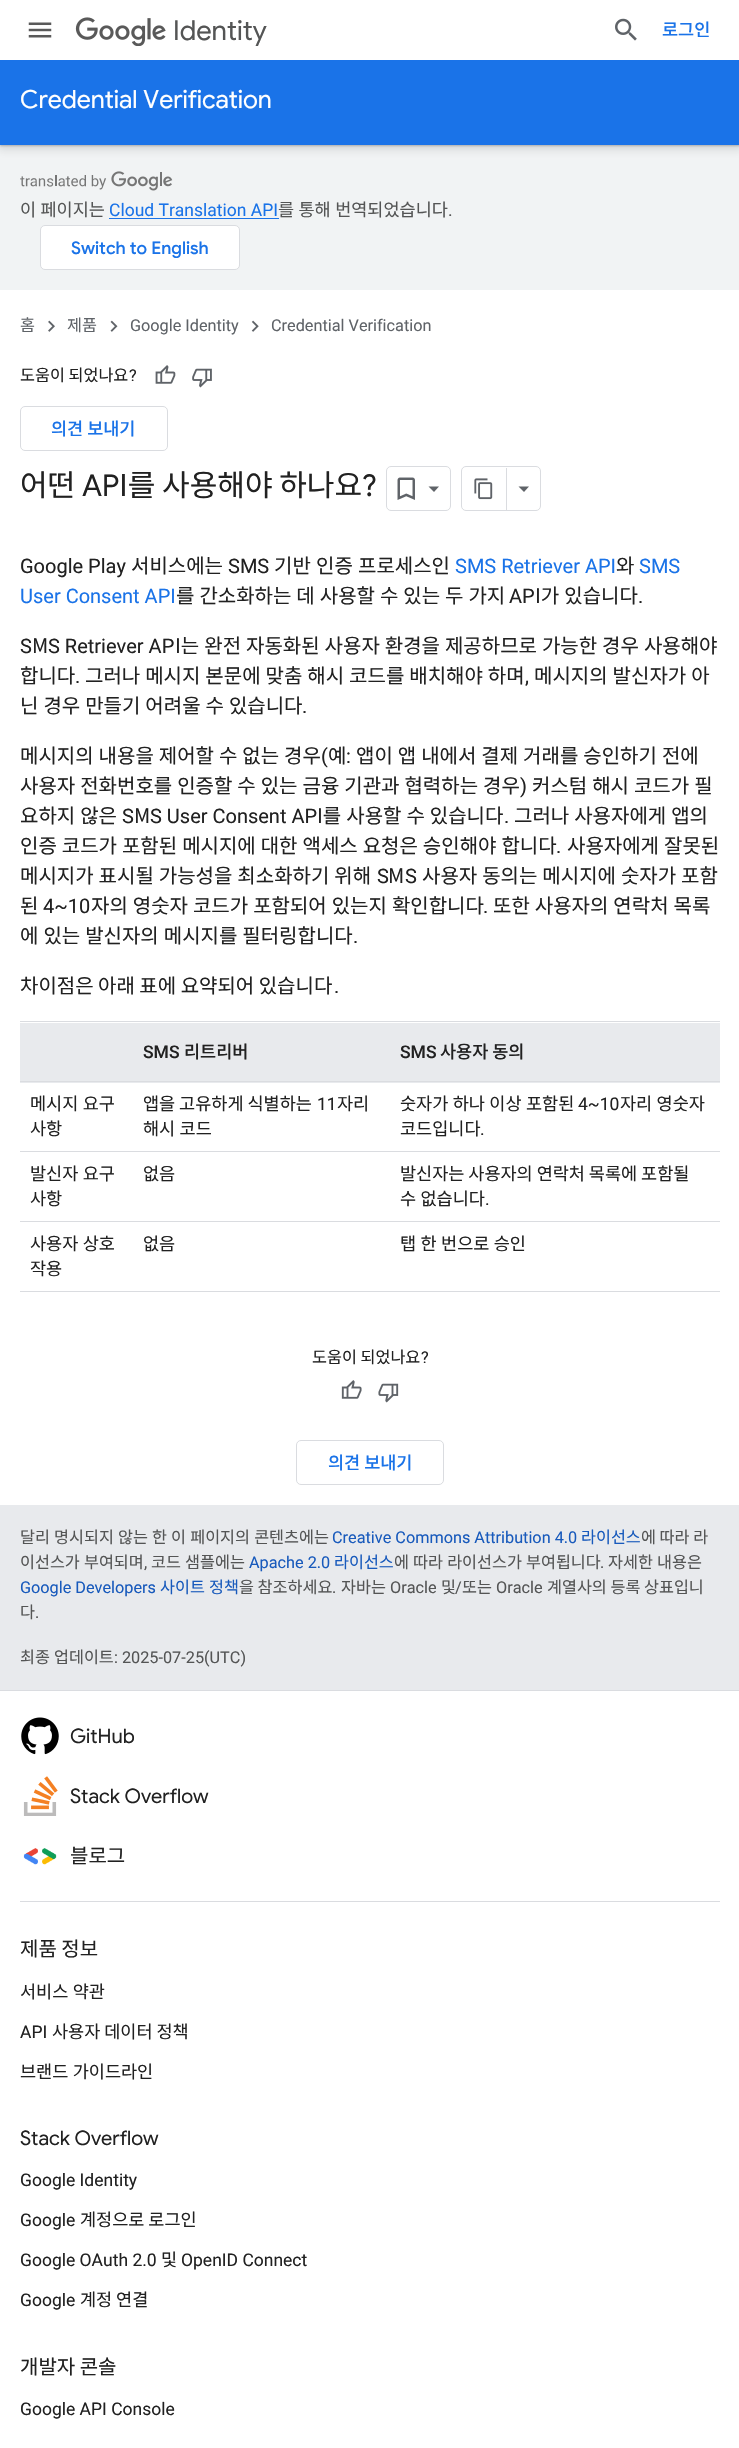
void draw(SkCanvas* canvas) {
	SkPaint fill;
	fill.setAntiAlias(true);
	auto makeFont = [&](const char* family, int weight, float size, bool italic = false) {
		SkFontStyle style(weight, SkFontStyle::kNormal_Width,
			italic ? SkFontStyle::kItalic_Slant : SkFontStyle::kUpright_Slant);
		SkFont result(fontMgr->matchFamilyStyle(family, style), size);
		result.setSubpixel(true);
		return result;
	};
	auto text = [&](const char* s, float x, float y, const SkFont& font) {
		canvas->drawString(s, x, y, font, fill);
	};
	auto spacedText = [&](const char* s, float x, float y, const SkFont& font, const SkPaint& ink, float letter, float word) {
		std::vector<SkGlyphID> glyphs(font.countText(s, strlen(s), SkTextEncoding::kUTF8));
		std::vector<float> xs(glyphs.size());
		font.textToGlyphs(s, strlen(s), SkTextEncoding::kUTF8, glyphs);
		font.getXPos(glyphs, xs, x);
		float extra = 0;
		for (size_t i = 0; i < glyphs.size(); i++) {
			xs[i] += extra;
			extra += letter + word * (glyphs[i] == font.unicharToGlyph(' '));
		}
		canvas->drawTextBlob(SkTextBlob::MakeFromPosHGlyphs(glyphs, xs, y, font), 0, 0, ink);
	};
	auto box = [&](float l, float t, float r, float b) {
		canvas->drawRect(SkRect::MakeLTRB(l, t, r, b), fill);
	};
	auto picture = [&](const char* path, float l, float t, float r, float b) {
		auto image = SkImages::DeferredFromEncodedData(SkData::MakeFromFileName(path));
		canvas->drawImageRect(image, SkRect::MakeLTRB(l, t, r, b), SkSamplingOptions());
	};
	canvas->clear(0xFFE8EAED);
	fill.setColor(0xFFF1F3F4);
	box(0, 145, 739, 290);
	fill.setColor(0x263C4043);
	fill.setMaskFilter(SkMaskFilter::MakeBlur(kNormal_SkBlurStyle, 4));
	canvas->drawRect(SkRect::MakeLTRB(-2, 55, 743, 150), fill);
	fill.setMaskFilter(nullptr);
	fill.setColor(0x4D3C4043);
	fill.setMaskFilter(SkMaskFilter::MakeBlur(kNormal_SkBlurStyle, 1));
	canvas->drawRect(SkRect::MakeLTRB(0, 56, 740, 146), fill);
	fill.setMaskFilter(nullptr);
	fill.setColor(0xFFFFFFFF);
	box(0, 0, 739, 60);
	picture("image0.png", 28, 22, 52, 38);
	picture("image1.png", 75, 17, 166, 46);
	picture("image2.png", 615, 18, 637, 41);
	fill.setColor(0xFF1A73E8);
	box(0, 60, 739, 145);
	fill.setColor(0xFFFFFFFF);
	box(0, 290, 739, 1505);
	picture("image3.png", 20, 171, 173, 191);
	fill.setColor(0xFF1A73E8);
	box(109, 218, 279, 219);
	fill.setColor(0xFFFFFFFF);
	canvas->drawRoundRect(SkRect::MakeLTRB(40.5f, 225.5f, 239.5f, 269.5f), 4.5f, 4.5f, fill);
	fill.setStyle(SkPaint::kStroke_Style);
	fill.setStrokeWidth(1);
	fill.setColor(0xFFDADCE0);
	canvas->drawRoundRect(SkRect::MakeLTRB(40.5f, 225.5f, 239.5f, 269.5f), 4.5f, 4.5f, fill);
	picture("image4.png", 48, 320, 55, 332);
	picture("image5.png", 110, 320, 118, 332);
	picture("image6.png", 251, 320, 259, 332);
	picture("image7.png", 155, 365, 176, 384);
	picture("image8.png", 192, 368, 212, 388);
	canvas->drawRoundRect(SkRect::MakeLTRB(20.5f, 406.5f, 167.5f, 450.5f), 4.5f, 4.5f, fill);
	canvas->drawRoundRect(SkRect::MakeLTRB(386.5f, 466.5f, 450.5f, 510.5f), 4.5f, 4.5f, fill);
	picture("image9.png", 397, 477, 415, 500);
	fill.setStyle(SkPaint::kFill_Style);
	fill.setColor(0xFF5F6368);
	canvas->drawPath(SkPathBuilder().moveTo(428.5f, 486.5f).lineTo(439, 486.5f).lineTo(434, 492).close().detach(), fill);
	fill.setStyle(SkPaint::kStroke_Style);
	fill.setColor(0xFFDADCE0);
	canvas->drawRoundRect(SkRect::MakeLTRB(461.5f, 466.5f, 540.5f, 510.5f), 4.5f, 4.5f, fill);
	fill.setStyle(SkPaint::kFill_Style);
	box(506, 468, 507, 510);
	picture("image10.png", 474, 478, 493, 500);
	fill.setColor(0xFF5F6368);
	canvas->drawPath(SkPathBuilder().moveTo(518.5f, 486.5f).lineTo(529, 486.5f).lineTo(524, 492).close().detach(), fill);
	fill.setColor(0xFFDADCE0);
	box(20, 1021, 720, 1022);
	fill.setColor(0xFFE8EAED);
	box(20, 1023, 720, 1083);
	fill.setColor(0xFFDADCE0);
	box(20, 1081, 720, 1082);
	box(20, 1151, 720, 1152);
	box(20, 1221, 720, 1222);
	box(20, 1291, 720, 1292);
	picture("image11.png", 341, 1380, 362, 1399);
	picture("image12.png", 378, 1383, 399, 1403);
	fill.setStyle(SkPaint::kStroke_Style);
	canvas->drawRoundRect(SkRect::MakeLTRB(296.5f, 1440.5f, 443.5f, 1484.5f), 4.5f, 4.5f, fill);
	fill.setStyle(SkPaint::kFill_Style);
	fill.setColor(0xFFFFFFFF);
	box(0, 1691, 739, 2448);
	fill.setColor(0xFFDADCE0);
	box(0, 1690, 739, 1691);
	box(20, 1901, 720, 1902);
	picture("image13.png", 21, 1717, 59, 1755);
	picture("image14.png", 23, 1776, 58, 1816);
	picture("image15.png", 23, 1848, 57, 1865);
	auto font1 = makeFont("Google Sans", 400, 27.5f);
	fill.setColor(0xFF545555);
	text("Identity", 173, 40, font1);
	auto font2 = makeFont("Noto Sans KR", 500, 17.5f);
	fill.setColor(0xFF1A73E8);
	text("로그인", 662, 36, font2);
	auto font3 = makeFont("Google Sans", 400, 25);
	fill.setColor(0xFFFFFFFF);
	text("Credential Verification", 20, 108, font3);
	auto font4 = makeFont("Noto Sans KR", 400, 17.5f);
	fill.setColor(0xFF545555);
	spacedText("이 페이지는", 20, 216, font4, fill, 0, 0.5f);
	auto font5 = makeFont("Roboto", 400, 17.5f);
	fill.setColor(0xFF1A73E8);
	text("Cloud Translation API", 109, 216, font5);
	fill.setColor(0xFF545555);
	spacedText("를 통해 번역되었습니다", 278, 216, font4, fill, 0, 0.5f);
	text(".", 448, 216, font5);
	auto font6 = makeFont("Google Sans", 500, 17.5f);
	fill.setColor(0xFF1A73E8);
	text("Switch to English", 71, 254, font6);
	auto font7 = makeFont("Noto Sans KR", 400, 16.25f);
	fill.setColor(0xFF5F6368);
	text("홈", 20, 331, font7);
	text("제품", 67, 331, font7);
	auto font8 = makeFont("Roboto", 400, 16.25f);
	text("Google Identity", 130, 331, font8);
	text("Credential Verification", 271, 331, font8);
	fill.setColor(0xFF212121);
	text("도움이 되었나요", 20, 381, font7);
	text("?", 129, 381, font8);
	fill.setColor(0xFF1A73E8);
	text("의견 보내기", 51, 435, font2);
	auto font9 = makeFont("Noto Sans KR", 400, 30);
	fill.setColor(0xFF212121);
	text("어떤", 20, 496, font9);
	auto font10 = makeFont("Google Sans", 400, 30);
	text("AP", 82, 496, font10);
	text("I를 사용해야 하나요", 119, 496, font9);
	text("?", 362, 496, font10);
	auto font11 = makeFont("Roboto", 400, 20);
	text("Google Play", 20, 573, font11);
	auto font12 = makeFont("Noto Sans KR", 400, 20);
	text("서비스에는", 131, 573, font12);
	text("SMS", 228, 573, font11);
	text("기반", 274, 573, font12);
	text("인증", 316, 573, font12);
	text("프로세스인", 358, 573, font12);
	fill.setColor(0xFF1A73E8);
	text("SMS Retriever API", 455, 573, font11);
	fill.setColor(0xFF212121);
	text("와", 616, 573, font12);
	fill.setColor(0xFF1A73E8);
	text("SMS", 639, 573, font11);
	text("User Consent API", 20, 603, font11);
	fill.setColor(0xFF212121);
	spacedText("를 간소화하는 데 사용할 수 있는 두 가지", 176, 603, font12, fill, 0, 0.5f);
	text("AP", 509, 603, font11);
	spacedText("I가 있습니다", 535, 603, font12, fill, 0, 0.5f);
	text(".", 638, 603, font11);
	text("S", 20, 653, font11);
	text("M", 32, 653, font12);
	text("S Retriever AP", 48, 653, font11);
	spacedText("I는 완전 자동화된 사용자 환경을 제공하므로 가능한 경우 사용해야", 175, 653, font12, fill, 0, 0.5f);
	text("합니다", 20, 683, font12);
	text(".", 75, 683, font11);
	spacedText("그러나 메시지 본문에 맞춤 해시 코드를 배치해야 하며", 85, 683, font12, fill, 0, 0.5f);
	text(",", 525, 683, font11);
	spacedText("메시지의 발신자가 아", 534, 683, font12, fill, 0, 0.5f);
	spacedText("닌 경우 만들기 어려울 수 있습니다", 20, 713, font12, fill, 0, 0.5f);
	text(".", 302, 713, font11);
	spacedText("메시지의 내용을 제어할 수 없는 경우", 20, 763, font12, fill, 0, 0.5f);
	text("(", 321, 763, font11);
	text("예", 328, 763, font12);
	text(":", 346, 763, font11);
	spacedText("앱이 앱 내에서 결제 거래를 승인하기 전에", 356, 763, font12, fill, 0, 0.5f);
	spacedText("사용자 전화번호를 인증할 수 있는 금융 기관과 협력하는 경우", 20, 793, font12, fill, 0, 0.5f);
	text(")", 520, 793, font11);
	spacedText("커스텀 해시 코드가 필", 532, 793, font12, fill, 0, 0.5f);
	spacedText("요하지 않은", 20, 823, font12, fill, 0, 0.5f);
	text("S", 122, 823, font11);
	text("M", 134, 823, font12);
	text("S User Consent AP", 150, 823, font11);
	spacedText("I를 사용할 수 있습니다", 317, 823, font12, fill, 0, 0.5f);
	text(".", 504, 823, font11);
	spacedText("그러나 사용자에게 앱의", 514, 823, font12, fill, 0, 0.5f);
	spacedText("인증 코드가 포함된 메시지에 대한 액세스 요청은 승인해야 합니다", 20, 853, font12, fill, 0, 0.5f);
	text(".", 556, 853, font11);
	spacedText("사용자에게 잘못된", 567, 853, font12, fill, 0, 0.5f);
	spacedText("메시지가 표시될 가능성을 최소화하기 위해", 20, 883, font12, fill, 0, 0.5f);
	text("S", 377, 883, font11);
	text("M", 388, 883, font12);
	text("S", 405, 883, font11);
	spacedText("사용자 동의는 메시지에 숫자가 포함", 422, 883, font12, fill, 0, 0.5f);
	text("된", 20, 913, font12);
	text("4~10", 43, 913, font11);
	spacedText("자의 영숫자 코드가 포함되어 있는지 확인합니다", 91, 913, font12, fill, 0, 0.5f);
	text(".", 483, 913, font11);
	spacedText("또한 사용자의 연락처 목록", 493, 913, font12, fill, 0, 0.5f);
	spacedText("에 있는 발신자의 메시지를 필터링합니다", 20, 943, font12, fill, 0, 0.5f);
	text(".", 353, 943, font11);
	text("차이점은 아래 표에 요약되어 있습니다", 20, 993, font12);
	text(".", 334, 993, font11);
	auto font13 = makeFont("Roboto", 500, 17.5f);
	text("SMS", 143, 1058, font13);
	text("리트리버", 184, 1058, font2);
	text("SMS", 400, 1058, font13);
	text("사용자 동의", 440, 1058, font2);
	spacedText("메시지 요구", 30, 1110, font4, fill, 0, 0.5f);
	text("사항", 30, 1135, font4);
	text("앱을 고유하게 식별하는", 143, 1110, font4);
	text("11", 317, 1110, font5);
	text("자리", 337, 1110, font4);
	spacedText("해시 코드", 143, 1135, font4, fill, 0, 0.5f);
	spacedText("숫자가 하나 이상 포함된", 400, 1110, font4, fill, 0, 0.5f);
	text("4~10", 578, 1110, font5);
	spacedText("자리 영숫자", 620, 1110, font4, fill, 0, 0.5f);
	text("코드입니다", 400, 1135, font4);
	text(".", 480, 1135, font5);
	spacedText("발신자 요구", 30, 1180, font4, fill, 0, 0.5f);
	text("사항", 30, 1205, font4);
	text("없음", 143, 1180, font4);
	text("발신자는 사용자의 연락처 목록에 포함될", 400, 1180, font4);
	spacedText("수 없습니다", 400, 1205, font4, fill, 0, 0.5f);
	text(".", 485, 1205, font5);
	spacedText("사용자 상호", 30, 1250, font4, fill, 0, 0.5f);
	text("작용", 30, 1275, font4);
	text("없음", 143, 1250, font4);
	spacedText("탭 한 번으로 승인", 400, 1250, font4, fill, 0, 0.5f);
	text("도움이 되었나요", 312, 1363, font7);
	text("?", 421, 1363, font8);
	fill.setColor(0xFF1A73E8);
	text("의견 보내기", 328, 1469, font2);
	fill.setColor(0xFF545555);
	spacedText("달리 명시되지 않는 한 이 페이지의 콘텐츠에는", 20, 1543, font7, fill, 0, 0.5f);
	fill.setColor(0xFF185ABC);
	text("Creative Commons Attribution 4.0", 332, 1543, font8);
	text("라이선스", 581, 1543, font7);
	fill.setColor(0xFF545555);
	text("에 따라 라", 641, 1543, font7);
	spacedText("이선스가 부여되며", 20, 1568, font7, fill, 0, 0.5f);
	text(",", 144, 1568, font8);
	spacedText("코드 샘플에는", 151, 1568, font7, fill, 0, 0.5f);
	fill.setColor(0xFF185ABC);
	text("Apache 2.0", 249, 1568, font8);
	text("라이선스", 334, 1568, font7);
	fill.setColor(0xFF545555);
	spacedText("에 따라 라이선스가 부여됩니다", 394, 1568, font7, fill, 0, 0.5f);
	text(".", 600, 1568, font8);
	spacedText("자세한 내용은", 608, 1568, font7, fill, 0, 0.5f);
	fill.setColor(0xFF185ABC);
	text("Google Developers", 20, 1593, font8);
	text("사이트", 160, 1593, font7);
	text("정책", 209, 1593, font7);
	fill.setColor(0xFF545555);
	text("을 참조하세요", 239, 1593, font7);
	text(".", 332, 1593, font8);
	text("자바는", 341, 1593, font7);
	text("Oracle", 390, 1593, font8);
	text("및", 441, 1593, font7);
	text("/", 455, 1593, font8);
	text("또는", 462, 1593, font7);
	text("Oracle", 496, 1593, font8);
	text("계열사의 등록 상표입니", 547, 1593, font7);
	text("다", 20, 1618, font7);
	text(".", 35, 1618, font8);
	text("최종", 20, 1663, font7);
	text("업데이트", 54, 1663, font7);
	text(": 2025-07-25(UTC)", 114, 1663, font8);
	auto font14 = makeFont("Google Sans", 400, 20);
	fill.setColor(0xFF212121);
	text("GitHub", 70, 1743, font14);
	text("Stack Overflow", 70, 1803, font14);
	text("블로그", 70, 1863, font12);
	text("제품 정보", 20, 1956, font12);
	spacedText("서비스 약관", 20, 1998, font4, fill, 0, 0.5f);
	text("API", 20, 2038, font5);
	text("사용자 데이터 정책", 52, 2038, font4);
	spacedText("브랜드 가이드라인", 20, 2078, font4, fill, 0, 0.5f);
	text("Stack Overflow", 20, 2145, font14);
	text("Google Identity", 20, 2186, font5);
	text("Google", 20, 2226, font5);
	text("계정으로 로그인", 80, 2226, font4);
	text("Google OAuth 2.0", 20, 2266, font5);
	text("및", 161, 2266, font4);
	text("OpenID Connect", 181, 2266, font5);
	text("Google", 20, 2306, font5);
	text("계정 연결", 80, 2306, font4);
	text("개발자 콘솔", 20, 2374, font12);
	text("Google API Console", 20, 2415, font5);
}
